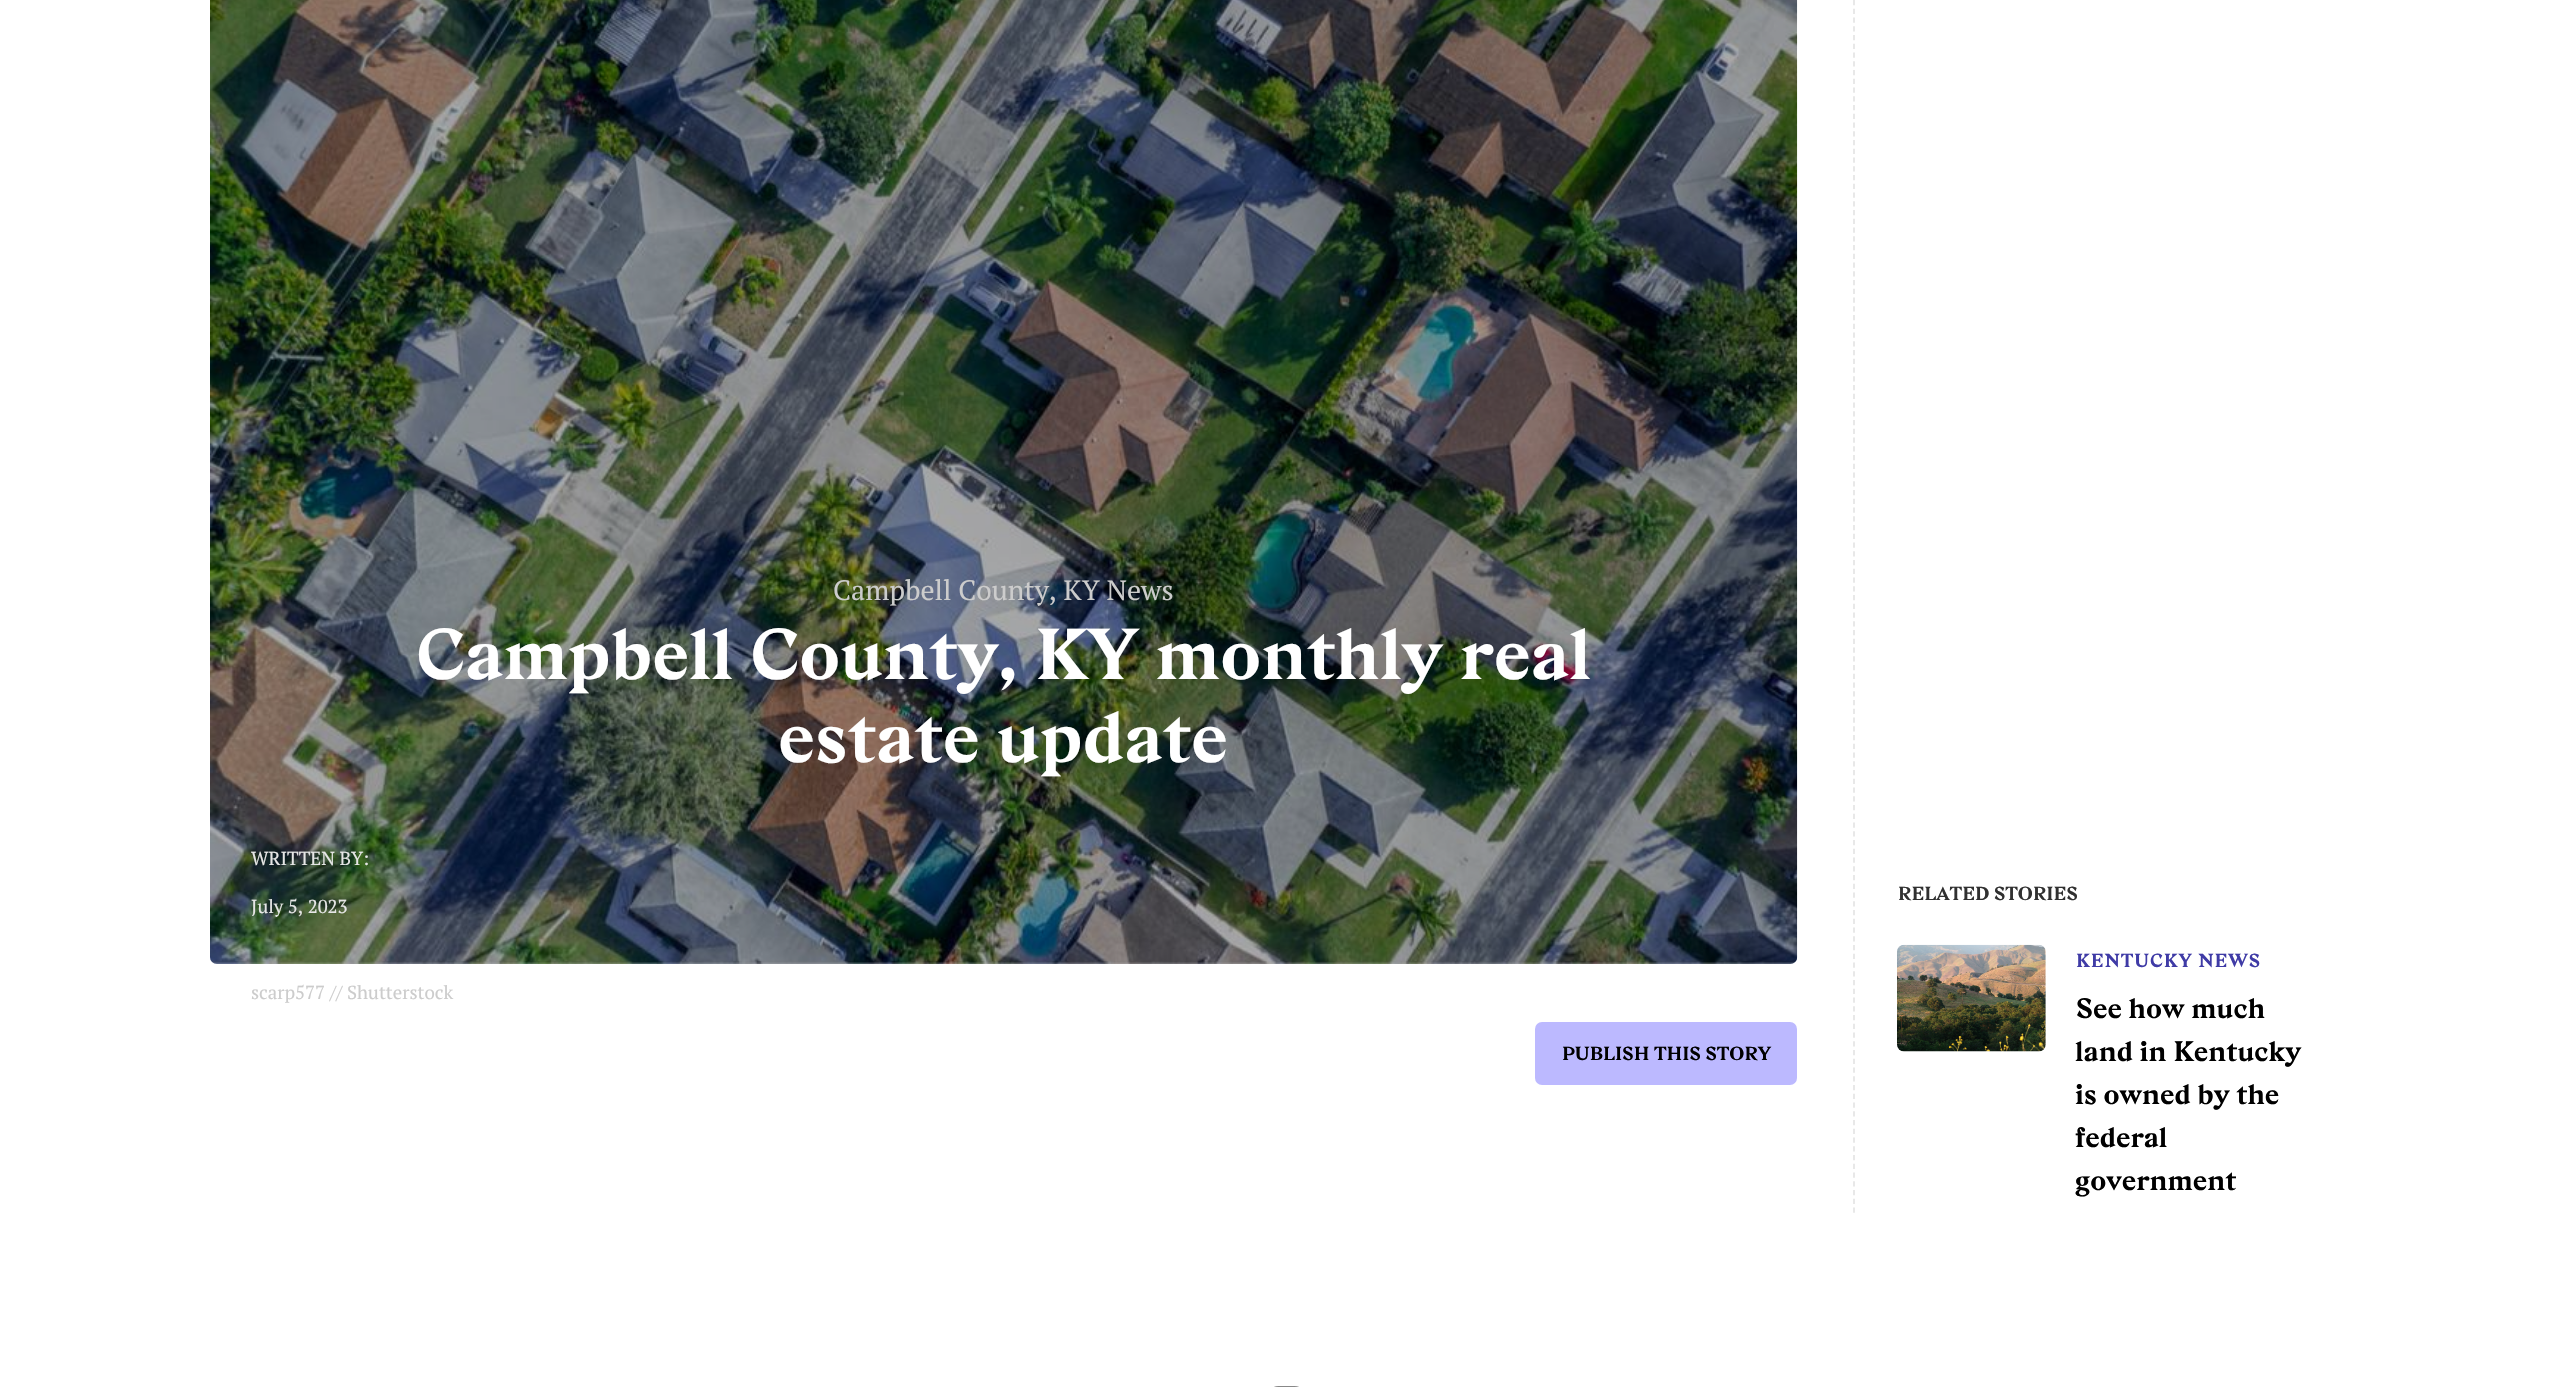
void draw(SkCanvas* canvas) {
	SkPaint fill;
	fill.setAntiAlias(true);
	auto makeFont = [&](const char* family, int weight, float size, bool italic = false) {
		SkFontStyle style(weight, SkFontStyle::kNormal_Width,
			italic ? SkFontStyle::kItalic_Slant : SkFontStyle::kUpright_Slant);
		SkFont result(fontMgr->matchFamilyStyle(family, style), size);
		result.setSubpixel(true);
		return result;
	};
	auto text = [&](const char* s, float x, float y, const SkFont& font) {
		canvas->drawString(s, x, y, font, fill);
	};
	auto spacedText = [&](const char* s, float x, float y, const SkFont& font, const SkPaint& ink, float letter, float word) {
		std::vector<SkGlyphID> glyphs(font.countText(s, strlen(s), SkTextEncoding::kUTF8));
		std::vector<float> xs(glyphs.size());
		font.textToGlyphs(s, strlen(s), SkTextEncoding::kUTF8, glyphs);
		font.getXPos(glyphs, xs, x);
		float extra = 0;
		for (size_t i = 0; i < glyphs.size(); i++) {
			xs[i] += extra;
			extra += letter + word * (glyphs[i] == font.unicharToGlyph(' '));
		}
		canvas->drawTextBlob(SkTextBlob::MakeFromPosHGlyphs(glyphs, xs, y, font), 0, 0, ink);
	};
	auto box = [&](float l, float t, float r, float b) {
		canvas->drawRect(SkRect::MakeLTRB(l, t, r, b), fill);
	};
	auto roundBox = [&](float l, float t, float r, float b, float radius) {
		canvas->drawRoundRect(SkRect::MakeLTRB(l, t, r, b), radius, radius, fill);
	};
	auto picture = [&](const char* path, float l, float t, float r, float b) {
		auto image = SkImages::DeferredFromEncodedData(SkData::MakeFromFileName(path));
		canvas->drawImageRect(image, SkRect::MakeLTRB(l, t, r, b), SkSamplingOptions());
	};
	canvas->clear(0xFFFFFFFF);
	picture("image0.png", 210, 0, 1798, 964);
	fill.setColor(0x54000000);
	roundBox(210, -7, 1797, 964, 7);
	fill.setColor(0xFFBCB9FF);
	roundBox(1535, 1022, 1797, 1085, 7);
	fill.setStyle(SkPaint::kStroke_Style);
	fill.setStrokeWidth(1.8f);
	fill.setColor(0xFFE6E6E6);
	fill.setPathEffect(SkDashPathEffect::Make({{5.25f, 3.5f}}, 0));
	canvas->drawPath(SkPathBuilder().moveTo(1854, -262.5f).lineTo(1854, 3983).detach(), fill);
	fill.setPathEffect(nullptr);
	picture("image1.png", 1897, 944, 2046, 1052);
	fill.setStyle(SkPaint::kFill_Style);
	fill.setColor(0xFFFFFFFF);
	box(1853, 1216, 1855, 1387);
	fill.setStyle(SkPaint::kStroke_Style);
	fill.setStrokeWidth(2);
	fill.setColor(0xFFF9F9F9);
	canvas->drawRoundRect(SkRect::MakeLTRB(1268, 1387, 1305, 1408), 18.5f, 18.5f, fill);
	fill.setColor(0xFF888888);
	canvas->drawRoundRect(SkRect::MakeLTRB(1268, 1387, 1305, 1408), 18.5f, 18.5f, fill);
	auto font1 = makeFont("PT Serif", 400, 28);
	fill.setStyle(SkPaint::kFill_Style);
	fill.setColor(0xFFCCCCCC);
	text("Campbell County, KY News", 833, 600, font1);
	auto font2 = makeFont("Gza", 700, 71.5f);
	fill.setColor(0xFFFFFFFF);
	text("Campbell County, KY monthly real", 416, 679, font2);
	text("estate update", 778, 762, font2);
	auto font3 = makeFont("PT Serif", 400, 18.75f);
	fill.setColor(0xFFE6E6E6);
	text("WRITTEN BY:", 251, 865, font3);
	text("July 5, 2023", 251, 913, font3);
	fill.setColor(0xFFCCCCCC);
	text("scarp577 // Shutterstock", 251, 999, font3);
	auto font4 = makeFont("Gza", 700, 18.75f);
	fill.setColor(0xFF000000);
	text("PUBLISH THIS STORY", 1562, 1060, font4);
	fill.setColor(0xFF303030);
	text("RELATED STORIES", 1898, 900, font4);
	fill.setColor(0xFF3F3BA6);
	spacedText("KENTUCKY NEWS", 2076, 967, font4, fill, 0.9f, 0);
	auto font5 = makeFont("Gza", 700, 28);
	fill.setColor(0xFF000000);
	text("See how much", 2076, 1018, font5);
	text("land in Kentucky", 2075, 1061, font5);
	text("is owned by the", 2075, 1104, font5);
	text("federal", 2075, 1147, font5);
	text("government", 2075, 1190, font5);
}
